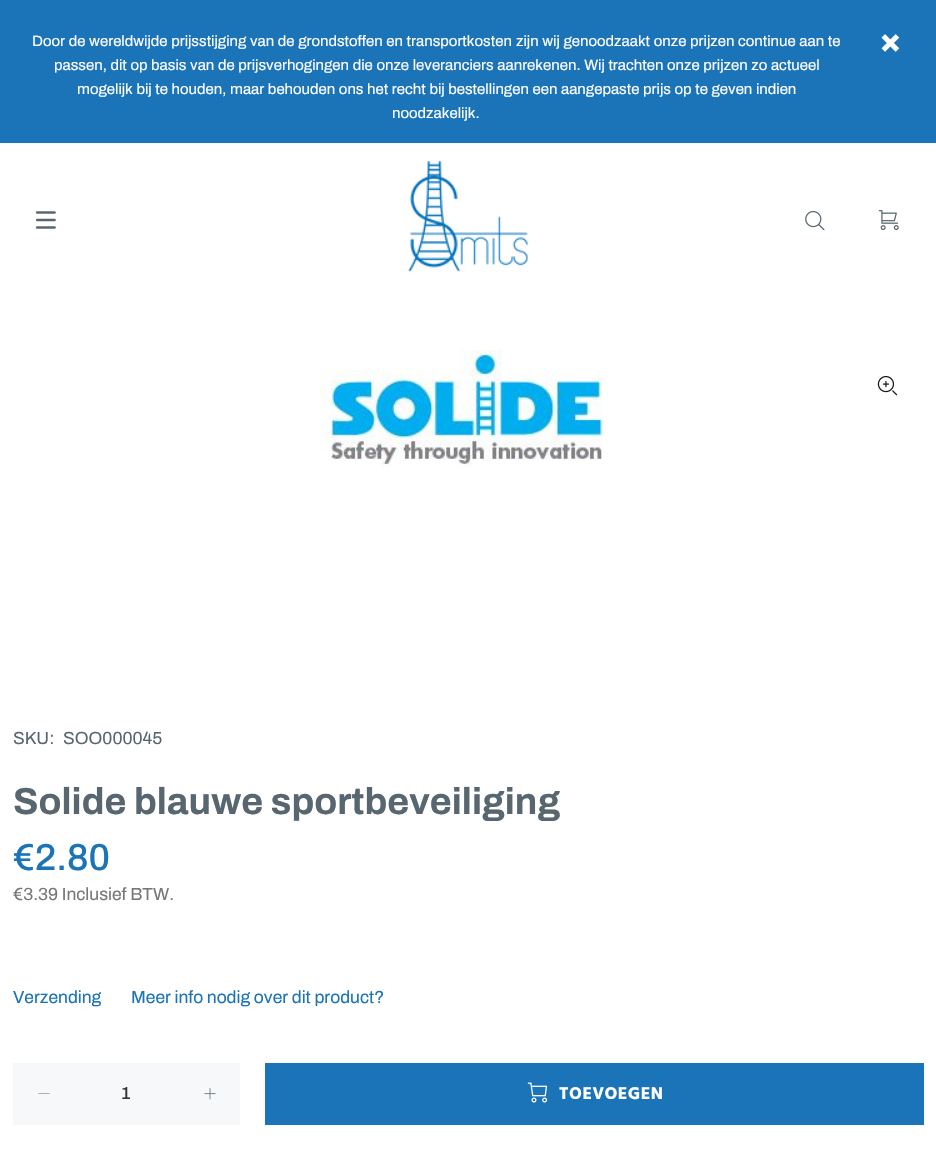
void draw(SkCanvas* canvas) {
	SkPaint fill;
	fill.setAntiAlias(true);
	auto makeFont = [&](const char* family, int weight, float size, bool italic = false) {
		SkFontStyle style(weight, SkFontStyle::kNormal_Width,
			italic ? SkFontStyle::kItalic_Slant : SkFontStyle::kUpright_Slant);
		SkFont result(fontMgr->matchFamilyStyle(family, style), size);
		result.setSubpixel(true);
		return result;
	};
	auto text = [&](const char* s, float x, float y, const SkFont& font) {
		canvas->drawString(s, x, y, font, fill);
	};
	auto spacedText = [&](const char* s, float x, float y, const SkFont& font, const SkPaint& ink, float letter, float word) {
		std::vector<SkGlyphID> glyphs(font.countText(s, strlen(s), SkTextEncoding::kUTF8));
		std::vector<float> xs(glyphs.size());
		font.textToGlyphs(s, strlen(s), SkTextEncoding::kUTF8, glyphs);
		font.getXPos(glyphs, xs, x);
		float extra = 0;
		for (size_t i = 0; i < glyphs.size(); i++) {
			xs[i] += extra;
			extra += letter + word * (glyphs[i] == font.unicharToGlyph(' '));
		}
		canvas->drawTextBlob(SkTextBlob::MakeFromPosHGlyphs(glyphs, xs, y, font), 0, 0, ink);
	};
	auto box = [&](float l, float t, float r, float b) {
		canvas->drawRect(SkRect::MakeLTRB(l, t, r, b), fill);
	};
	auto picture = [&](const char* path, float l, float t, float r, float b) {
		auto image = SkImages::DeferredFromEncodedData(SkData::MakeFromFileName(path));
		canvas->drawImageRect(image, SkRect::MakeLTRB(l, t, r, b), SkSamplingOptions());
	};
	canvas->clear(0xFFFFFFFF);
	fill.setColor(0xFF1C74B8);
	box(0, 0, 936, 143);
	picture("image0.png", 881, 34, 900, 52);
	picture("image1.png", 35, 211, 56, 229);
	picture("image2.png", 408, 161, 528, 272);
	picture("image3.png", 805, 210, 825, 231);
	picture("image4.png", 878, 210, 899, 230);
	picture("image5.png", 321, 350, 603, 467);
	picture("image6.png", 877, 375, 898, 396);
	fill.setColor(0xFFF7F8FA);
	box(13, 1063, 240, 1125);
	fill.setColor(0xFF57666F);
	canvas->drawPath(SkPathBuilder().moveTo(49.5f, 1093.5f).lineTo(49.5f, 1094).lineTo(38.5f, 1094).lineTo(38.5f, 1093.5f).close().detach(), fill);
	picture("image7.png", 204, 1088, 216, 1100);
	fill.setColor(0xFF1C74B8);
	box(265, 1063, 924, 1125);
	picture("image8.png", 527, 1082, 548, 1103);
	auto font1 = makeFont("Archivo", 400, 15);
	fill.setColor(0xFFFFFFFF);
	spacedText("Door de wereldwijde prijsstijging van de grondstoffen en transportkosten", 32, 46, font1, fill, 0, 0.5f);
	spacedText("zijn wij genoodzaakt onze prijzen continue aan te", 516, 46, font1, fill, 0, 0.5f);
	spacedText("passen, dit op basis van de prijsverhogingen die onze leveranciers aanrekenen. Wij trachten onze prijzen zo actueel", 54, 70, font1, fill, 0, 0.5f);
	spacedText("mogelijk bij te houden, maar behouden ons het recht bij bestellingen een aangepaste prijs op te geven indien", 77, 94, font1, fill, 0, 0.5f);
	text("noodzakelijk.", 392, 118, font1);
	auto font2 = makeFont("Archivo", 400, 17.5f);
	fill.setColor(0xFF57666F);
	text("SKU:", 13, 744, font2);
	text("SOO000045", 63, 744, font2);
	auto font3 = makeFont("Archivo", 700, 37.5f);
	spacedText("Solide blauwe sportbeveiliging", 13, 814, font3, fill, 0.05f, 0);
	auto font4 = makeFont("Archivo", 500, 37.5f);
	fill.setColor(0xFF1C74B8);
	text("€2.80", 13, 870, font4);
	fill.setColor(0xFF777777);
	text("€3.39 Inclusief BTW.", 13, 900, font2);
	fill.setColor(0xFF1C74B8);
	text("Verzending", 13, 1003, font2);
	text("Meer info nodig over dit product?", 131, 1003, font2);
	auto font5 = makeFont("Archivo", 500, 17.5f);
	fill.setColor(0xFF333333);
	text("1", 121, 1099, font5);
	auto font6 = makeFont("Hind", 700, 17.5f);
	fill.setColor(0xFFFFFFFF);
	spacedText("TOEVOEGEN", 559, 1099, font6, fill, 0.5f, 0);
}
